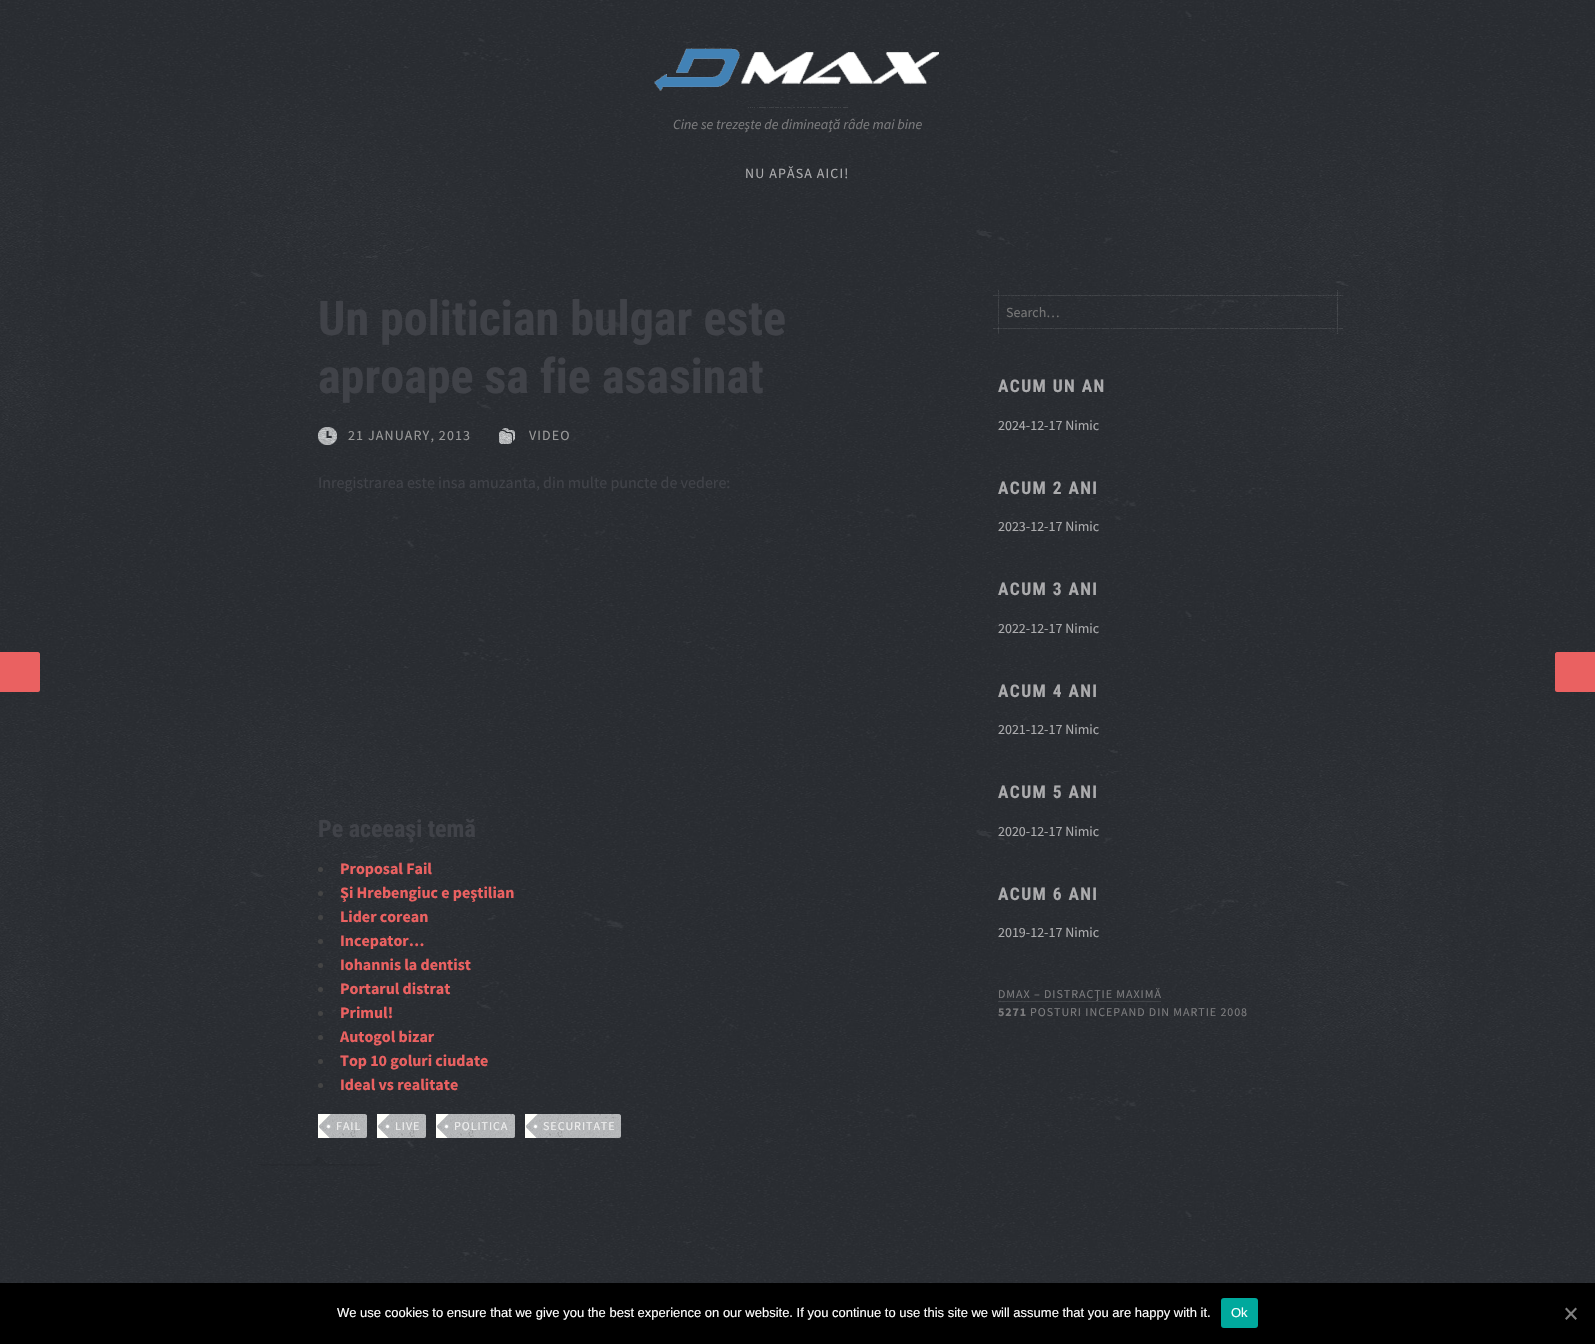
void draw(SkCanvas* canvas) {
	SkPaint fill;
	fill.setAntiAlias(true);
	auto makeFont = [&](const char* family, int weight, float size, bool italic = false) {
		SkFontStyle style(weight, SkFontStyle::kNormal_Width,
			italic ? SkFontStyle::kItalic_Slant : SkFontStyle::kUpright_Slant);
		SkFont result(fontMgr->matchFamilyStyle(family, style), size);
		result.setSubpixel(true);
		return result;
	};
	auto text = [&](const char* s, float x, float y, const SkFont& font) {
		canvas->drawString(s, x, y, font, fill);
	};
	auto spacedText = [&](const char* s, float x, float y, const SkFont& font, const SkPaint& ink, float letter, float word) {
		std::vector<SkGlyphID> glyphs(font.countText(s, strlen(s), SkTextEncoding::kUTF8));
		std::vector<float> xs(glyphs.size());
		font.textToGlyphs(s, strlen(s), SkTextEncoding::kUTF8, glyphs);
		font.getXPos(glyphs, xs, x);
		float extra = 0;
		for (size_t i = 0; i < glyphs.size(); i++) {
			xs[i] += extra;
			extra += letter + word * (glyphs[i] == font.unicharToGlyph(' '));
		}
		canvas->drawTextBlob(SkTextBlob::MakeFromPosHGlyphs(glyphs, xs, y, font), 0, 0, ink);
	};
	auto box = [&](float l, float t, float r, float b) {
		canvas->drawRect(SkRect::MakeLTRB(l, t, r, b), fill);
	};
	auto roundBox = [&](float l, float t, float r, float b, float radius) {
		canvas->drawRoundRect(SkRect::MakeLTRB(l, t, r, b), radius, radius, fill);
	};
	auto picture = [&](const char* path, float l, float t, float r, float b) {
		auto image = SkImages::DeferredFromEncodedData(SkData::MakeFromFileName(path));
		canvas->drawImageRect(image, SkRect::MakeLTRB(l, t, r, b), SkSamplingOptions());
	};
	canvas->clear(0xFFFFFFFF);
	picture("image0.png", 0, 0, 1595, 1283);
	picture("image1.png", 654, 48, 939, 91);
	picture("image2.png", 748, 107, 848, 108);
	picture("image3.png", 318, 427, 337, 445);
	picture("image4.png", 499, 428, 515, 444);
	picture("image5.png", 258, 1157, 381, 1166);
	fill.setColor(0xFFEA6161);
	canvas->drawPath(SkPathBuilder().moveTo(-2, 652).lineTo(38, 652).cubicTo(39, 652, 40, 653, 40, 654).lineTo(40, 690).cubicTo(40, 691, 39, 692, 38, 692).lineTo(-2, 692).close().detach(), fill);
	canvas->drawPath(SkPathBuilder().moveTo(1557, 652).lineTo(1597, 652).lineTo(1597, 692).lineTo(1557, 692).cubicTo(1556, 692, 1555, 691, 1555, 690).lineTo(1555, 654).cubicTo(1555, 653, 1556, 652, 1557, 652).close().detach(), fill);
	fill.setColor(0xFF444444);
	canvas->drawCircle(320.5f, 869.5f, 2.5f, fill);
	canvas->drawCircle(320.5f, 893.5f, 2.5f, fill);
	canvas->drawCircle(320.5f, 917.5f, 2.5f, fill);
	canvas->drawCircle(320.5f, 941.5f, 2.5f, fill);
	canvas->drawCircle(320.5f, 965.5f, 2.5f, fill);
	canvas->drawCircle(320.5f, 989.5f, 2.5f, fill);
	canvas->drawCircle(320.5f, 1013.5f, 2.5f, fill);
	canvas->drawCircle(320.5f, 1037.5f, 2.5f, fill);
	canvas->drawCircle(320.5f, 1061.5f, 2.5f, fill);
	canvas->drawCircle(320.5f, 1085.5f, 2.5f, fill);
	fill.setColor(0xFFB6B8BA);
	canvas->drawPath(SkPathBuilder().moveTo(318, 1114).lineTo(365, 1114).cubicTo(366, 1114, 367, 1115, 367, 1116).lineTo(367, 1136).cubicTo(367, 1137, 366, 1138, 365, 1138).lineTo(318, 1138).close().detach(), fill);
	picture("image6.png", 318, 1114, 367, 1138);
	canvas->drawPath(SkPathBuilder().moveTo(377, 1114).lineTo(424, 1114).cubicTo(425, 1114, 426, 1115, 426, 1116).lineTo(426, 1136).cubicTo(426, 1137, 425, 1138, 424, 1138).lineTo(377, 1138).close().detach(), fill);
	picture("image7.png", 377, 1114, 426, 1138);
	canvas->drawPath(SkPathBuilder().moveTo(436, 1114).lineTo(513, 1114).cubicTo(514, 1114, 515, 1115, 515, 1116).lineTo(515, 1136).cubicTo(515, 1137, 514, 1138, 513, 1138).lineTo(436, 1138).close().detach(), fill);
	picture("image8.png", 436, 1114, 515, 1138);
	canvas->drawPath(SkPathBuilder().moveTo(525, 1114).lineTo(619, 1114).cubicTo(620, 1114, 621, 1115, 621, 1116).lineTo(621, 1136).cubicTo(621, 1137, 620, 1138, 619, 1138).lineTo(525, 1138).close().detach(), fill);
	picture("image9.png", 525, 1114, 621, 1138);
	picture("image10.png", 993, 290, 1343, 334);
	fill.setColor(0x1AFFFFFF);
	box(998, 1001, 1161, 1002);
	fill.setColor(0xFF000000);
	box(0, 1283, 1595, 1344);
	fill.setColor(0xFF00A99D);
	roundBox(1221, 1298, 1258, 1328, 3);
	fill.setColor(0xFF808080);
	canvas->drawPath(SkPathBuilder().moveTo(1575.5f, 1307.5f).lineTo(1577, 1309).lineTo(1566.5f, 1320).lineTo(1565, 1318.5f).close().detach(), fill);
	canvas->drawPath(SkPathBuilder().moveTo(1565, 1309).lineTo(1566.5f, 1307.5f).lineTo(1577, 1318.5f).lineTo(1575.5f, 1320).close().detach(), fill);
	auto font1 = makeFont("Source Sans Pro", 400, 14, true);
	fill.setColor(0xFF7B7B7D);
	text("Cine se trezeşte de dimineaţă râde mai bine", 673, 129, font1);
	auto font2 = makeFont("Source Sans Pro", 400, 14);
	fill.setColor(0xFFABABAD);
	spacedText("NU APĂSA AICI!", 745, 178, font2, fill, 1.1f, 0);
	auto font3 = makeFont("Roboto Condensed", 700, 48);
	fill.setColor(0xFF404248);
	text("Un politician bulgar este", 318, 335, font3);
	text("aproape sa fie asasinat", 318, 393, font3);
	fill.setColor(0xFF999999);
	spacedText("21 JANUARY, 2013", 348, 440, font2, fill, 1.1f, 0);
	spacedText("VIDEO", 529, 440, font2, fill, 1.1f, 0);
	auto font4 = makeFont("Source Sans Pro", 400, 16);
	fill.setColor(0xFF404248);
	text("Inregistrarea este insa amuzanta, din multe puncte de vedere:", 318, 488, font4);
	auto font5 = makeFont("Roboto Condensed", 700, 24);
	text("Pe aceeaşi temă", 318, 837, font5);
	auto font6 = makeFont("Source Sans Pro", 700, 16);
	fill.setColor(0xFFEA6161);
	text("Proposal Fail", 340, 874, font6);
	text("Şi Hrebengiuc e peştilian", 340, 898, font6);
	text("Lider corean", 340, 922, font6);
	text("Incepator…", 340, 946, font6);
	text("Iohannis la dentist", 340, 970, font6);
	text("Portarul distrat", 340, 994, font6);
	text("Primul!", 340, 1018, font6);
	text("Autogol bizar", 340, 1042, font6);
	text("Top 10 goluri ciudate", 340, 1066, font6);
	text("Ideal vs realitate", 340, 1090, font6);
	auto font7 = makeFont("Source Sans Pro", 400, 12);
	fill.setColor(0xFFEEEEEE);
	spacedText("FAIL", 336, 1130, font7, fill, 0.95f, 0);
	spacedText("LIVE", 395, 1130, font7, fill, 0.95f, 0);
	spacedText("POLITICA", 454, 1130, font7, fill, 0.95f, 0);
	spacedText("SECURITATE", 543, 1130, font7, fill, 0.95f, 0);
	fill.setColor(0xFF757575);
	text("Search…", 1006, 317, font2);
	auto font8 = makeFont("Roboto Condensed", 700, 17.5f);
	fill.setColor(0xFFABABAD);
	spacedText("ACUM UN AN", 998, 392, font8, fill, 1.4f, 0);
	text("2024-12-17 Nimic", 998, 430, font2);
	spacedText("ACUM 2 ANI", 998, 494, font8, fill, 1.4f, 0);
	text("2023-12-17 Nimic", 998, 531, font2);
	spacedText("ACUM 3 ANI", 998, 595, font8, fill, 1.4f, 0);
	text("2022-12-17 Nimic", 998, 633, font2);
	spacedText("ACUM 4 ANI", 998, 697, font8, fill, 1.4f, 0);
	text("2021-12-17 Nimic", 998, 734, font2);
	spacedText("ACUM 5 ANI", 998, 798, font8, fill, 1.4f, 0);
	text("2020-12-17 Nimic", 998, 836, font2);
	spacedText("ACUM 6 ANI", 998, 900, font8, fill, 1.4f, 0);
	text("2019-12-17 Nimic", 998, 937, font2);
	fill.setColor(0xFF7B7B7D);
	spacedText("DMAX – DISTRACŢIE MAXIMĂ", 998, 998, font7, fill, 0.95f, 0);
	auto font9 = makeFont("Source Sans Pro", 700, 12);
	spacedText("5271", 998, 1016, font9, fill, 0.95f, 0);
	spacedText("POSTURI INCEPAND DIN MARTIE 2008", 1030, 1016, font7, fill, 0.95f, 0);
	auto font10 = makeFont("Liberation Sans", 400, 13);
	fill.setColor(0xFFFFFFFF);
	text("We use cookies to ensure that we give you the best experience on our website. If you continue to use this site we will assume that you are happy with it.", 337, 1317, font10);
	text("Ok", 1231, 1317, font10);
}
